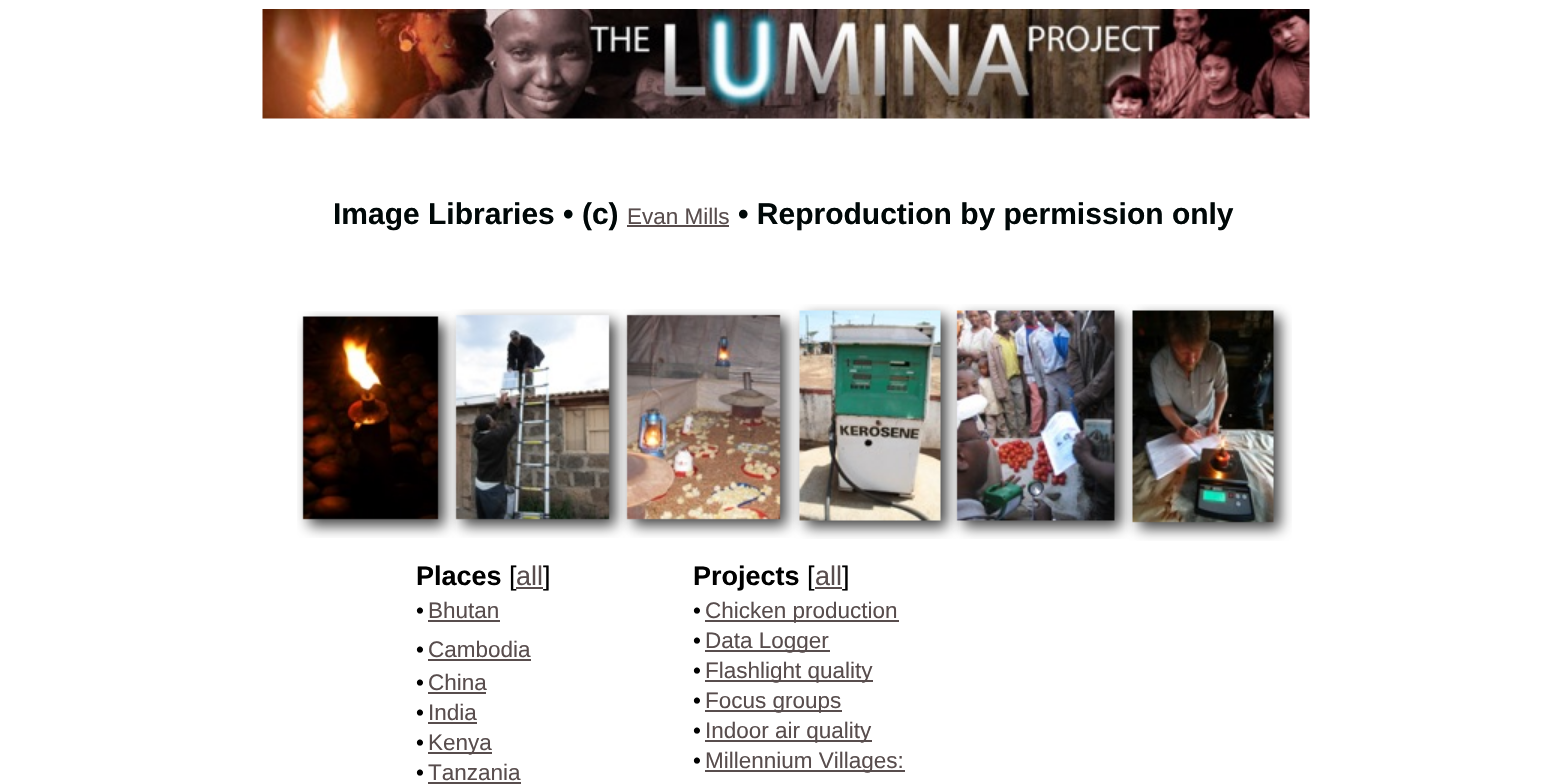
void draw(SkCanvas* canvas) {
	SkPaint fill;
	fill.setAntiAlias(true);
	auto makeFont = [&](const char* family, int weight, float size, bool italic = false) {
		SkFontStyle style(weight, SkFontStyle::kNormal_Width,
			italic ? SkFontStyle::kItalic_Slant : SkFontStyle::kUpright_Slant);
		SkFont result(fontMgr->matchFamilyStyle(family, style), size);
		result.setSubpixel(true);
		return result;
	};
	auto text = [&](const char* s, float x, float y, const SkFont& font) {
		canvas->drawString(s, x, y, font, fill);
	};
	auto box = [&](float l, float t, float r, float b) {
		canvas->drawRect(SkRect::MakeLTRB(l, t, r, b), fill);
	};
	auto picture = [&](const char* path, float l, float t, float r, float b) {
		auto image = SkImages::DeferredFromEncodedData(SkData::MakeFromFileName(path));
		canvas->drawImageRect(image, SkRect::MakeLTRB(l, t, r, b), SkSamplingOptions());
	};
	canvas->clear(0xFFFFFFFF);
	picture("image0.png", 262, 9, 1310, 119);
	fill.setColor(0xFF584D4D);
	box(627, 225, 729, 227);
	picture("image1.png", 297, 311, 456, 538);
	picture("image2.png", 450, 309, 628, 538);
	picture("image3.png", 621, 309, 799, 538);
	picture("image4.png", 793, 304, 959, 539);
	picture("image5.png", 951, 304, 1133, 539);
	picture("image6.png", 1126, 304, 1292, 541);
	box(516, 587, 543, 589);
	box(428, 620, 500, 622);
	box(428, 659, 531, 661);
	box(428, 692, 486, 694);
	box(428, 722, 477, 724);
	box(428, 752, 492, 754);
	box(428, 782, 521, 784);
	box(815, 587, 842, 589);
	box(705, 620, 899, 622);
	box(705, 650, 830, 652);
	box(705, 680, 873, 682);
	box(705, 710, 842, 712);
	box(705, 740, 872, 742);
	box(705, 770, 905, 772);
	auto font1 = makeFont("Liberation Sans", 700, 30);
	fill.setColor(0xFF000808);
	text("Image Libraries • (c)", 333, 224, font1);
	auto font2 = makeFont("Liberation Sans", 400, 22.5f);
	fill.setColor(0xFF584D4D);
	text("Evan Mills", 627, 224, font2);
	fill.setColor(0xFF000808);
	text("• Reproduction by permission only", 738, 224, font1);
	auto font3 = makeFont("Liberation Sans", 700, 27);
	fill.setColor(0xFF000000);
	text("Places", 416, 585, font3);
	auto font4 = makeFont("Liberation Sans", 400, 27);
	text("[", 509, 585, font4);
	fill.setColor(0xFF584D4D);
	text("all", 516, 585, font4);
	fill.setColor(0xFF000000);
	text("]", 543, 585, font4);
	text("•", 416, 618, font2);
	fill.setColor(0xFF584D4D);
	text("Bhutan", 428, 618, font2);
	fill.setColor(0xFF000000);
	text("•", 416, 657, font2);
	fill.setColor(0xFF584D4D);
	text("Cambodia", 428, 657, font2);
	fill.setColor(0xFF000000);
	text("•", 416, 690, font2);
	fill.setColor(0xFF584D4D);
	text("China", 428, 690, font2);
	fill.setColor(0xFF000000);
	text("•", 416, 720, font2);
	fill.setColor(0xFF584D4D);
	text("India", 428, 720, font2);
	fill.setColor(0xFF000000);
	text("•", 416, 750, font2);
	fill.setColor(0xFF584D4D);
	text("Kenya", 428, 750, font2);
	fill.setColor(0xFF000000);
	text("•", 416, 780, font2);
	fill.setColor(0xFF584D4D);
	text("Tanzania", 428, 780, font2);
	fill.setColor(0xFF000000);
	text("Projects", 693, 585, font3);
	text("[", 807, 585, font4);
	fill.setColor(0xFF584D4D);
	text("all", 815, 585, font4);
	fill.setColor(0xFF000000);
	text("]", 842, 585, font4);
	text("•", 693, 618, font2);
	fill.setColor(0xFF584D4D);
	text("Chicken production", 705, 618, font2);
	fill.setColor(0xFF000000);
	text("•", 693, 648, font2);
	fill.setColor(0xFF584D4D);
	text("Data Logger", 705, 648, font2);
	fill.setColor(0xFF000000);
	text("•", 693, 678, font2);
	fill.setColor(0xFF584D4D);
	text("Flashlight quality", 705, 678, font2);
	fill.setColor(0xFF000000);
	text("•", 693, 708, font2);
	fill.setColor(0xFF584D4D);
	text("Focus groups", 705, 708, font2);
	fill.setColor(0xFF000000);
	text("•", 693, 738, font2);
	fill.setColor(0xFF584D4D);
	text("Indoor air quality", 705, 738, font2);
	fill.setColor(0xFF000000);
	text("•", 693, 768, font2);
	fill.setColor(0xFF584D4D);
	text("Millennium Villages:", 705, 768, font2);
}
